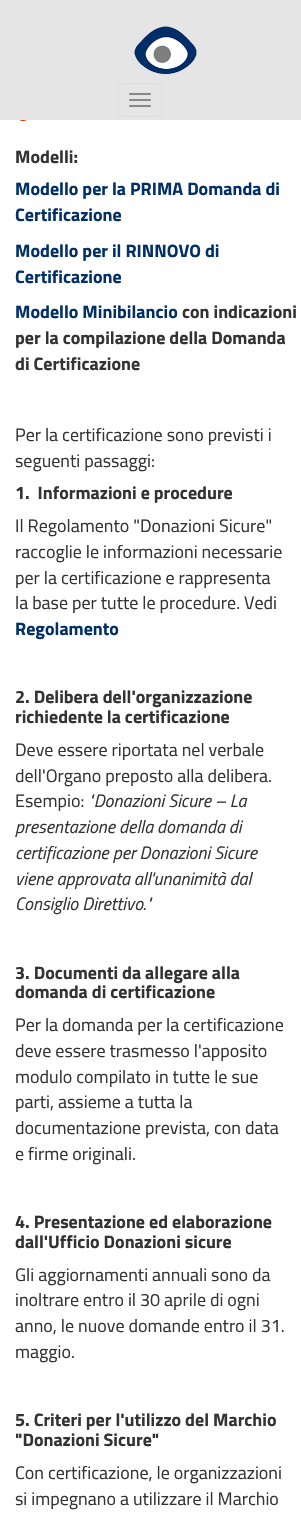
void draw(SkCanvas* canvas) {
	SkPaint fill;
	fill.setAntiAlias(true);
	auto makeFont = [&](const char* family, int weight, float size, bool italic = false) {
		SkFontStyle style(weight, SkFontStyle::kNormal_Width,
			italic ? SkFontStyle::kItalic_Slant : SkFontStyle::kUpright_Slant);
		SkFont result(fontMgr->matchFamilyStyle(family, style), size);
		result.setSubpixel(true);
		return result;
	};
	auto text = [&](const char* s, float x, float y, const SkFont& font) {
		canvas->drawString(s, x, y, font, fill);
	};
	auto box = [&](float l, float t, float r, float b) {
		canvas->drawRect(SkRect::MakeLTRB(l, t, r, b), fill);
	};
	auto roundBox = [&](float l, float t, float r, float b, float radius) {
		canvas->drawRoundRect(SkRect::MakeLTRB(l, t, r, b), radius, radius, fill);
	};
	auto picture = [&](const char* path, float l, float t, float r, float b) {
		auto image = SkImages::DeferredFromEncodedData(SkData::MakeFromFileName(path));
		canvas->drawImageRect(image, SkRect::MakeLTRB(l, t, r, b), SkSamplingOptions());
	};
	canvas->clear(0xFFFFFFFF);
	fill.setColor(0xFFE5E5E5);
	box(0, 0, 301, 120);
	picture("image0.png", 134, 26, 197, 75);
	fill.setStyle(SkPaint::kStroke_Style);
	fill.setStrokeWidth(1);
	fill.setColor(0xFFDDDDDD);
	canvas->drawRoundRect(SkRect::MakeLTRB(118.5f, 83.5f, 161.5f, 116.5f), 3.5f, 3.5f, fill);
	fill.setStyle(SkPaint::kFill_Style);
	fill.setColor(0xFF888888);
	roundBox(129, 93, 151, 95, 1);
	roundBox(129, 99, 151, 101, 1);
	roundBox(129, 105, 151, 107, 1);
	picture("image1.png", 19, 120, 27, 121);
	auto font1 = makeFont("Titillium Web", 700, 18);
	fill.setColor(0xFF333333);
	text("Modelli:", 15, 163, font1);
	fill.setColor(0xFF013068);
	text("Modello per la PRIMA Domanda di", 15, 195, font1);
	text("Certificazione", 15, 221, font1);
	text("Modello per il RINNOVO di", 15, 257, font1);
	text("Certificazione", 15, 283, font1);
	text("Modello Minibilancio", 15, 318, font1);
	fill.setColor(0xFF333333);
	text("con indicazioni", 182, 318, font1);
	text("per la compilazione della Domanda", 15, 344, font1);
	text("di Certificazione", 15, 370, font1);
	auto font2 = makeFont("Titillium Web", 400, 18);
	text("Per la certificazione sono previsti i", 15, 441, font2);
	text("seguenti passaggi:", 15, 467, font2);
	text("1.  Informazioni e procedure", 15, 499, font1);
	text("Il Regolamento \"Donazioni Sicure\"", 15, 532, font2);
	text("raccoglie le informazioni necessarie", 15, 558, font2);
	text("per la certificazione e rappresenta", 15, 584, font2);
	text("la base per tutte le procedure. Vedi", 15, 609, font2);
	fill.setColor(0xFF013068);
	text("Regolamento", 15, 635, font1);
	fill.setColor(0xFF333333);
	text("2. Delibera dell'organizzazione", 15, 703, font1);
	text("richiedente la certificazione", 15, 723, font1);
	text("Deve essere riportata nel verbale", 15, 756, font2);
	text("dell'Organo preposto alla delibera.", 15, 782, font2);
	text("Esempio:", 15, 807, font2);
	auto font3 = makeFont("Titillium Web", 400, 18, true);
	text("\"Donazioni Sicure – La", 88, 807, font3);
	text("presentazione della domanda di", 15, 833, font3);
	text("certificazione per Donazioni Sicure", 15, 859, font3);
	text("viene approvata all'unanimità dal", 15, 885, font3);
	text("Consiglio Direttivo.\"", 15, 910, font3);
	text("3. Documenti da allegare alla", 15, 979, font1);
	text("domanda di certificazione", 15, 998, font1);
	text("Per la domanda per la certificazione", 15, 1031, font2);
	text("deve essere trasmesso l'apposito", 15, 1057, font2);
	text("modulo compilato in tutte le sue", 15, 1083, font2);
	text("parti, assieme a tutta la", 15, 1108, font2);
	text("documentazione prevista, con data", 15, 1134, font2);
	text("e firme originali.", 15, 1160, font2);
	text("4. Presentazione ed elaborazione", 15, 1228, font1);
	text("dall'Ufficio Donazioni sicure", 15, 1248, font1);
	text("Gli aggiornamenti annuali sono da", 15, 1281, font2);
	text("inoltrare entro il 30 aprile di ogni", 15, 1306, font2);
	text("anno, le nuove domande entro il 31.", 15, 1332, font2);
	text("maggio.", 15, 1358, font2);
	text("5. Criteri per l'utilizzo del Marchio", 15, 1426, font1);
	text("\"Donazioni Sicure\"", 15, 1446, font1);
	text("Con certificazione, le organizzazioni", 15, 1479, font2);
	text("si impegnano a utilizzare il Marchio", 15, 1505, font2);
}
